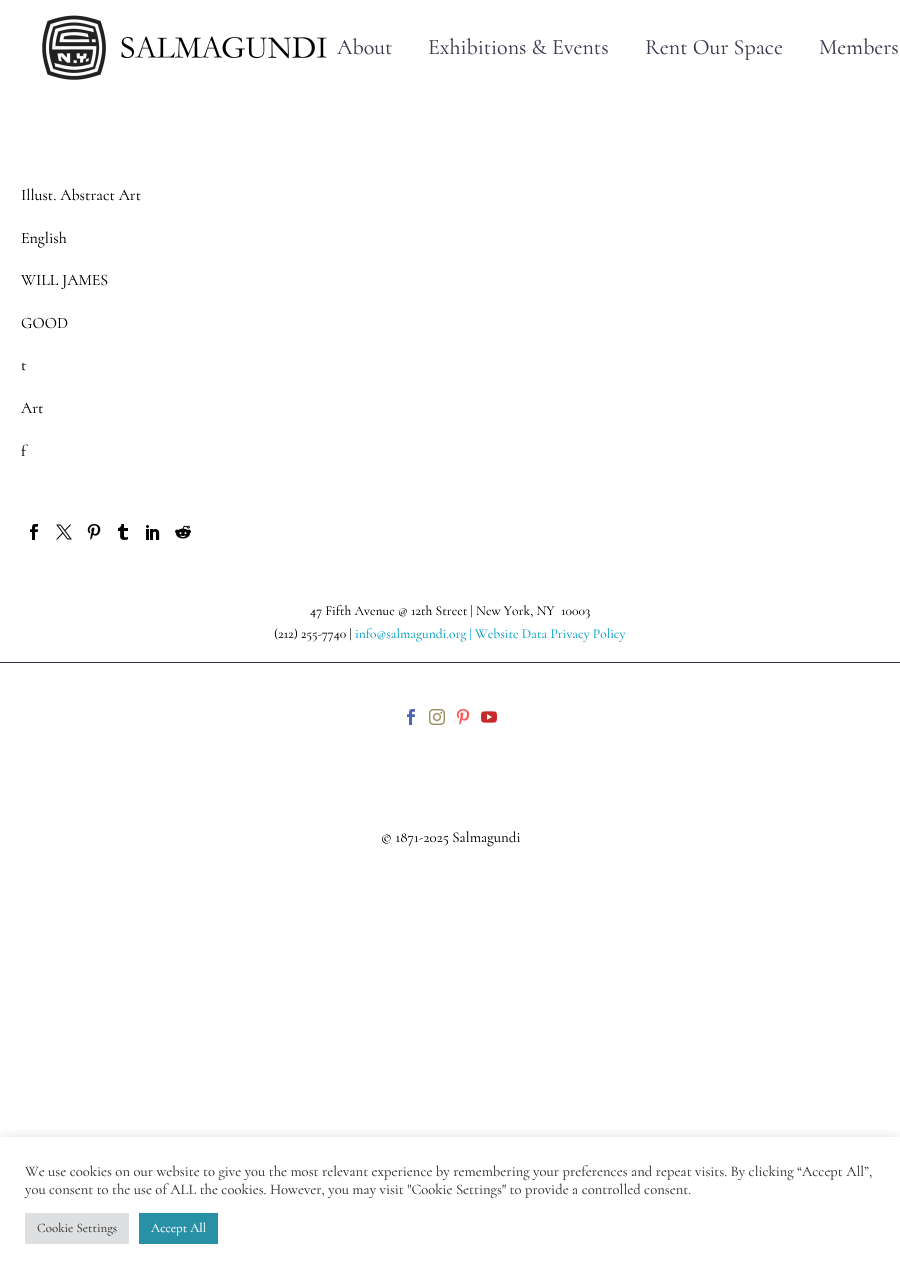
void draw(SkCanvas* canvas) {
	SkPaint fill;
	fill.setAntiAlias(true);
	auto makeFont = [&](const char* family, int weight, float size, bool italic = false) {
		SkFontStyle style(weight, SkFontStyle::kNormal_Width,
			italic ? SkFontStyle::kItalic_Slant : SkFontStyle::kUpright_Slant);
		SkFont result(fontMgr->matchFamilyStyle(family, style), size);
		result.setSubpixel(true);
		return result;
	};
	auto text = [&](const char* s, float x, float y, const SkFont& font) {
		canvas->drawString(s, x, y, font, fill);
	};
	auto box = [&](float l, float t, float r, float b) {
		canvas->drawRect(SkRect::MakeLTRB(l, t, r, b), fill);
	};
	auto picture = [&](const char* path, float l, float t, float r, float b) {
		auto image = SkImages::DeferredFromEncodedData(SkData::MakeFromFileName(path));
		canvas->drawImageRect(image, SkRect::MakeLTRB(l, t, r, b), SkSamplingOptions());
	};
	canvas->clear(0xFFFFFFFF);
	picture("image0.png", 42, 15, 327, 80);
	picture("image1.png", 30, 524, 38, 540);
	picture("image2.png", 56, 524, 72, 540);
	picture("image3.png", 87, 524, 101, 540);
	picture("image4.png", 118, 524, 128, 540);
	picture("image5.png", 146, 525, 160, 540);
	picture("image6.png", 175, 525, 191, 539);
	fill.setColor(0xFF313646);
	box(0, 662, 900, 663);
	picture("image7.png", 407, 709, 415, 725);
	picture("image8.png", 429, 709, 445, 725);
	picture("image9.png", 456, 709, 470, 725);
	picture("image10.png", 481, 711, 497, 723);
	canvas->save();
	canvas->clipRect(SkRect::MakeLTRB(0, 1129, 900, 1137));
	fill.setColor(0x4DACABAB);
	fill.setMaskFilter(SkMaskFilter::MakeBlur(kNormal_SkBlurStyle, 5));
	canvas->drawRect(SkRect::MakeLTRB(0, 1136, 900, 1273), fill);
	fill.setMaskFilter(nullptr);
	canvas->restore();
	fill.setColor(0xFFDEDFE0);
	box(25, 1213, 129, 1244);
	fill.setColor(0xFF2991A5);
	box(139, 1213, 218, 1244);
	auto font1 = makeFont("Cormorant", 400, 22);
	fill.setColor(0xFF3C3950);
	text("About", 337, 54, font1);
	text("Exhibitions & Events", 428, 54, font1);
	text("Rent Our Space", 645, 54, font1);
	text("Members", 819, 54, font1);
	auto font2 = makeFont("Cormorant", 400, 16);
	fill.setColor(0xFF000000);
	text("Illust. Abstract Art", 21, 200, font2);
	text("English", 21, 243, font2);
	text("WILL JAMES", 21, 285, font2);
	text("GOOD", 21, 328, font2);
	text("t", 21, 370, font2);
	text("Art", 21, 413, font2);
	text("f", 21, 456, font2);
	auto font3 = makeFont("Cormorant", 400, 13.6f);
	text("47 Fifth Avenue @ 12th Street | New York, NY  10003", 310, 615, font3);
	text("(212) 255-7740 |", 274, 638, font3);
	fill.setColor(0xFF029DC4);
	text("info@salmagundi.org | Website Data Privacy Policy", 355, 638, font3);
	auto font4 = makeFont("Cormorant", 400, 14.9f);
	fill.setColor(0xFF000000);
	text("© 1871-2025 Salmagundi", 381, 842, font4);
	auto font5 = makeFont("Cormorant", 400, 14.67f);
	fill.setColor(0xFF333333);
	text("We use cookies on our website to give you the most relevant experience by remembering your preferences and repeat visits. By clicking “Accept All”,", 25, 1176, font5);
	text("you consent to the use of ALL the cookies. However, you may visit \"Cookie Settings\" to provide a controlled consent.", 25, 1194, font5);
	auto font6 = makeFont("Cormorant", 400, 13);
	text("Cookie Settings", 37, 1232, font6);
	fill.setColor(0xFFFFFFFF);
	text("Accept All", 151, 1232, font6);
}
